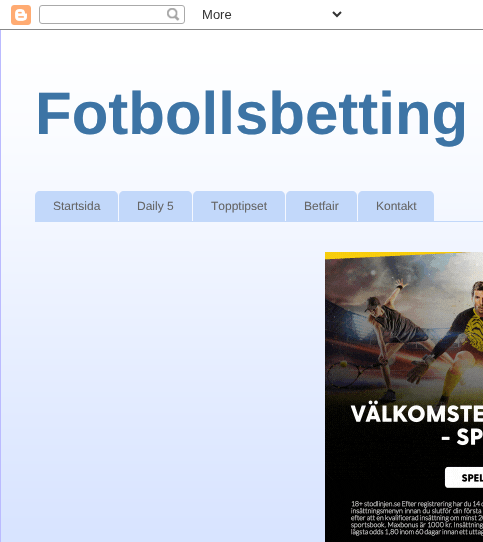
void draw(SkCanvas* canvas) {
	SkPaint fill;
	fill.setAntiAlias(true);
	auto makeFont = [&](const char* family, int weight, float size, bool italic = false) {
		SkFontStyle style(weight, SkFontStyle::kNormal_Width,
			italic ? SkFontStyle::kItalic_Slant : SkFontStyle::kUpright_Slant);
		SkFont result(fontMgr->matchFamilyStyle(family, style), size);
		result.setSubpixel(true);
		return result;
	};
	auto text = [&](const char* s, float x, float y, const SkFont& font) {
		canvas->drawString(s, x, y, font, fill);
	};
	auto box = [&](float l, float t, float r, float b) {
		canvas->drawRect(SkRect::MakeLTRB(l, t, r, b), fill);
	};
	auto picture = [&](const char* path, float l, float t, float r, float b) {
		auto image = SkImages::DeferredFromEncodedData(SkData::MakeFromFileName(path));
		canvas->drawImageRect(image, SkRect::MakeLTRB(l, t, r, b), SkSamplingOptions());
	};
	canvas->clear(0xFFFFFFFF);
	picture("image0.png", 0, 0, 483, 29);
	picture("image1.png", 0, 5, 483, 30);
	fill.setColor(0xFFD4E1FF);
	box(1, 37, 483, 542);
	picture("image2.png", 1, 30, 483, 542);
	fill.setColor(0xFFBBBBFF);
	box(0, 30, 1, 542);
	fill.setColor(0xFFC2D8FA);
	box(35, 221, 483, 222);
	canvas->drawPath(SkPathBuilder().moveTo(40, 191).lineTo(113, 191).cubicTo(116, 191, 118, 193, 118, 196).lineTo(118, 221).lineTo(35, 221).lineTo(35, 196).cubicTo(35, 193, 37, 191, 40, 191).close().detach(), fill);
	canvas->drawPath(SkPathBuilder().moveTo(124, 191).lineTo(187, 191).cubicTo(190, 191, 192, 193, 192, 196).lineTo(192, 221).lineTo(119, 221).lineTo(119, 196).cubicTo(119, 193, 121, 191, 124, 191).close().detach(), fill);
	canvas->drawPath(SkPathBuilder().moveTo(198, 191).lineTo(280, 191).cubicTo(283, 191, 285, 193, 285, 196).lineTo(285, 221).lineTo(193, 221).lineTo(193, 196).cubicTo(193, 193, 195, 191, 198, 191).close().detach(), fill);
	canvas->drawPath(SkPathBuilder().moveTo(291, 191).lineTo(352, 191).cubicTo(355, 191, 357, 193, 357, 196).lineTo(357, 221).lineTo(286, 221).lineTo(286, 196).cubicTo(286, 193, 288, 191, 291, 191).close().detach(), fill);
	canvas->drawPath(SkPathBuilder().moveTo(363, 191).lineTo(429, 191).cubicTo(432, 191, 434, 193, 434, 196).lineTo(434, 221).lineTo(358, 221).lineTo(358, 196).cubicTo(358, 193, 360, 191, 363, 191).close().detach(), fill);
	picture("image3.png", 325, 252, 483, 542);
	auto font1 = makeFont("Liberation Sans", 700, 60);
	fill.setColor(0xFF3D74A5);
	text("Fotbollsbetting", 35, 134, font1);
	auto font2 = makeFont("Liberation Sans", 400, 12);
	fill.setColor(0xFF666666);
	text("Startsida", 53, 210, font2);
	text("Daily 5", 137, 210, font2);
	text("Topptipset", 211, 210, font2);
	text("Betfair", 304, 210, font2);
	text("Kontakt", 376, 210, font2);
}
